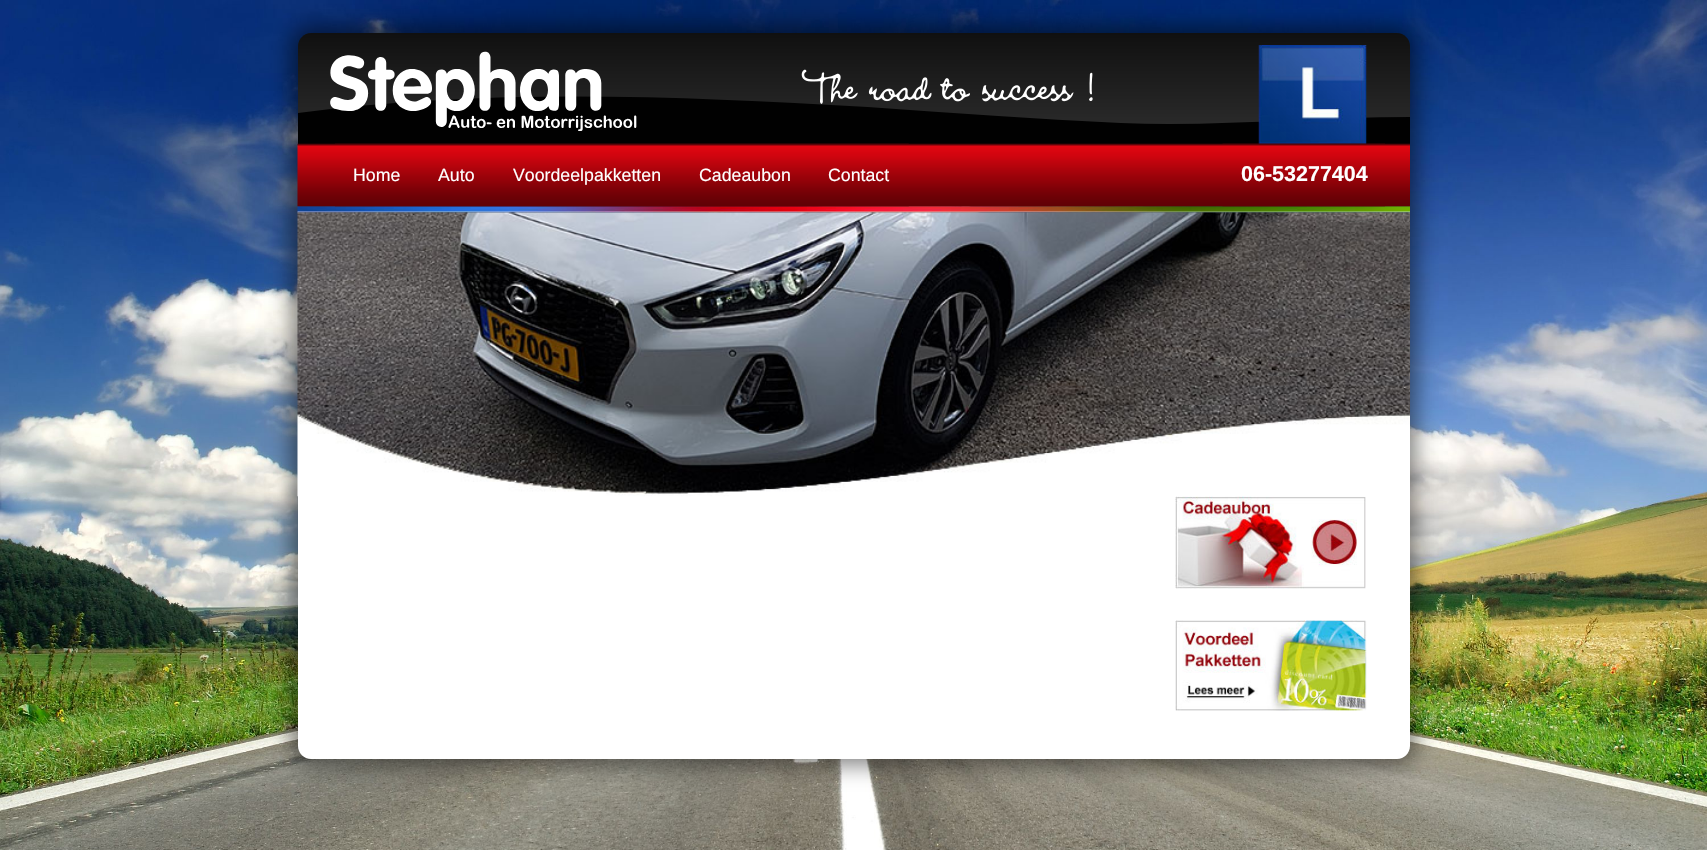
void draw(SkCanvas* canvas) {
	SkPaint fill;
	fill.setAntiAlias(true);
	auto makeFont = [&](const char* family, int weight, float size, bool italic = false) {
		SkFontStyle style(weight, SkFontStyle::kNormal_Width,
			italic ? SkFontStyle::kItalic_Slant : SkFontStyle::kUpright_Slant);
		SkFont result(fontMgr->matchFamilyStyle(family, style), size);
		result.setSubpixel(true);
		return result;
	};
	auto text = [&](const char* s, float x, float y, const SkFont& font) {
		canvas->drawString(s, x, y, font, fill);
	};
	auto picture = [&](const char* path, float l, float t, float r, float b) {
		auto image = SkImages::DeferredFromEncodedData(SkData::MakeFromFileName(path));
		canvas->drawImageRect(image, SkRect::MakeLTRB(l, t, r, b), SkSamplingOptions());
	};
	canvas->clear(0xFFFFFFFF);
	picture("image0.png", 0, 0, 1707, 850);
	fill.setColor(0x80000000);
	fill.setMaskFilter(SkMaskFilter::MakeBlur(kNormal_SkBlurStyle, 11));
	canvas->drawRoundRect(SkRect::MakeLTRB(291, 26, 1416, 765), 19, 19, fill);
	fill.setMaskFilter(nullptr);
	{
		const SkColor colors[] = {0xFF101010, 0xFF303030};
		const float stops[] = {0, 1};
		const SkPoint ends[] = {{298, 33}, {298, 148}};
		fill.setShader(SkGradientShader::MakeLinear(ends, colors, stops, 2, SkTileMode::kClamp));
		fill.setAlpha(255);
	}
	canvas->drawPath(SkPathBuilder().moveTo(311, 33).lineTo(1397, 33).cubicTo(1404, 33, 1410, 39, 1410, 46).lineTo(1410, 125).lineTo(298, 125).lineTo(298, 46).cubicTo(298, 39, 304, 33, 311, 33).close().detach(), fill);
	fill.setShader(nullptr);
	fill.setColor(0xFF010101);
	canvas->drawPath(SkPathBuilder().moveTo(298, 113).lineTo(298, 144).lineTo(1410, 144).lineTo(1410, 117).cubicTo(1314, 117, 1217, 127, 1121, 123).cubicTo(1037, 119, 952, 113, 868, 107).cubicTo(678, 96, 487, 88, 298, 113).close().detach(), fill);
	picture("image1.png", 330, 51, 637, 131);
	picture("image2.png", 801, 69, 1093, 104);
	picture("image3.png", 1258, 45, 1367, 144);
	picture("image11.png", 297, 206, 1410, 213);
	picture("image4.png", 297, 143, 1410, 207);
	picture("image5.png", 335, 143, 420, 207);
	picture("image6.png", 420, 143, 494, 207);
	picture("image7.png", 493, 143, 680, 207);
	picture("image8.png", 680, 143, 810, 207);
	picture("image9.png", 810, 143, 909, 207);
	picture("image10.png", 1222, 143, 1385, 207);
	fill.setColor(0xFFFFFFFF);
	canvas->drawPath(SkPathBuilder().moveTo(298, 213).lineTo(1410, 213).lineTo(1410, 746).cubicTo(1410, 753, 1404, 759, 1397, 759).lineTo(311, 759).cubicTo(304, 759, 298, 753, 298, 746).close().detach(), fill);
	picture("image12.png", 297, 212, 1410, 497);
	picture("image13.png", 1175, 496, 1366, 589);
	picture("image14.png", 1175, 620, 1367, 711);
	auto font1 = makeFont("Liberation Sans", 400, 17.75f);
	text("Home", 353, 181, font1);
	text("Auto", 438, 181, font1);
	text("Voordeelpakketten", 513, 181, font1);
	text("Cadeaubon", 699, 181, font1);
	text("Contact", 828, 181, font1);
	auto font2 = makeFont("Liberation Sans", 700, 21.5f);
	text("06-53277404", 1241, 181, font2);
}
